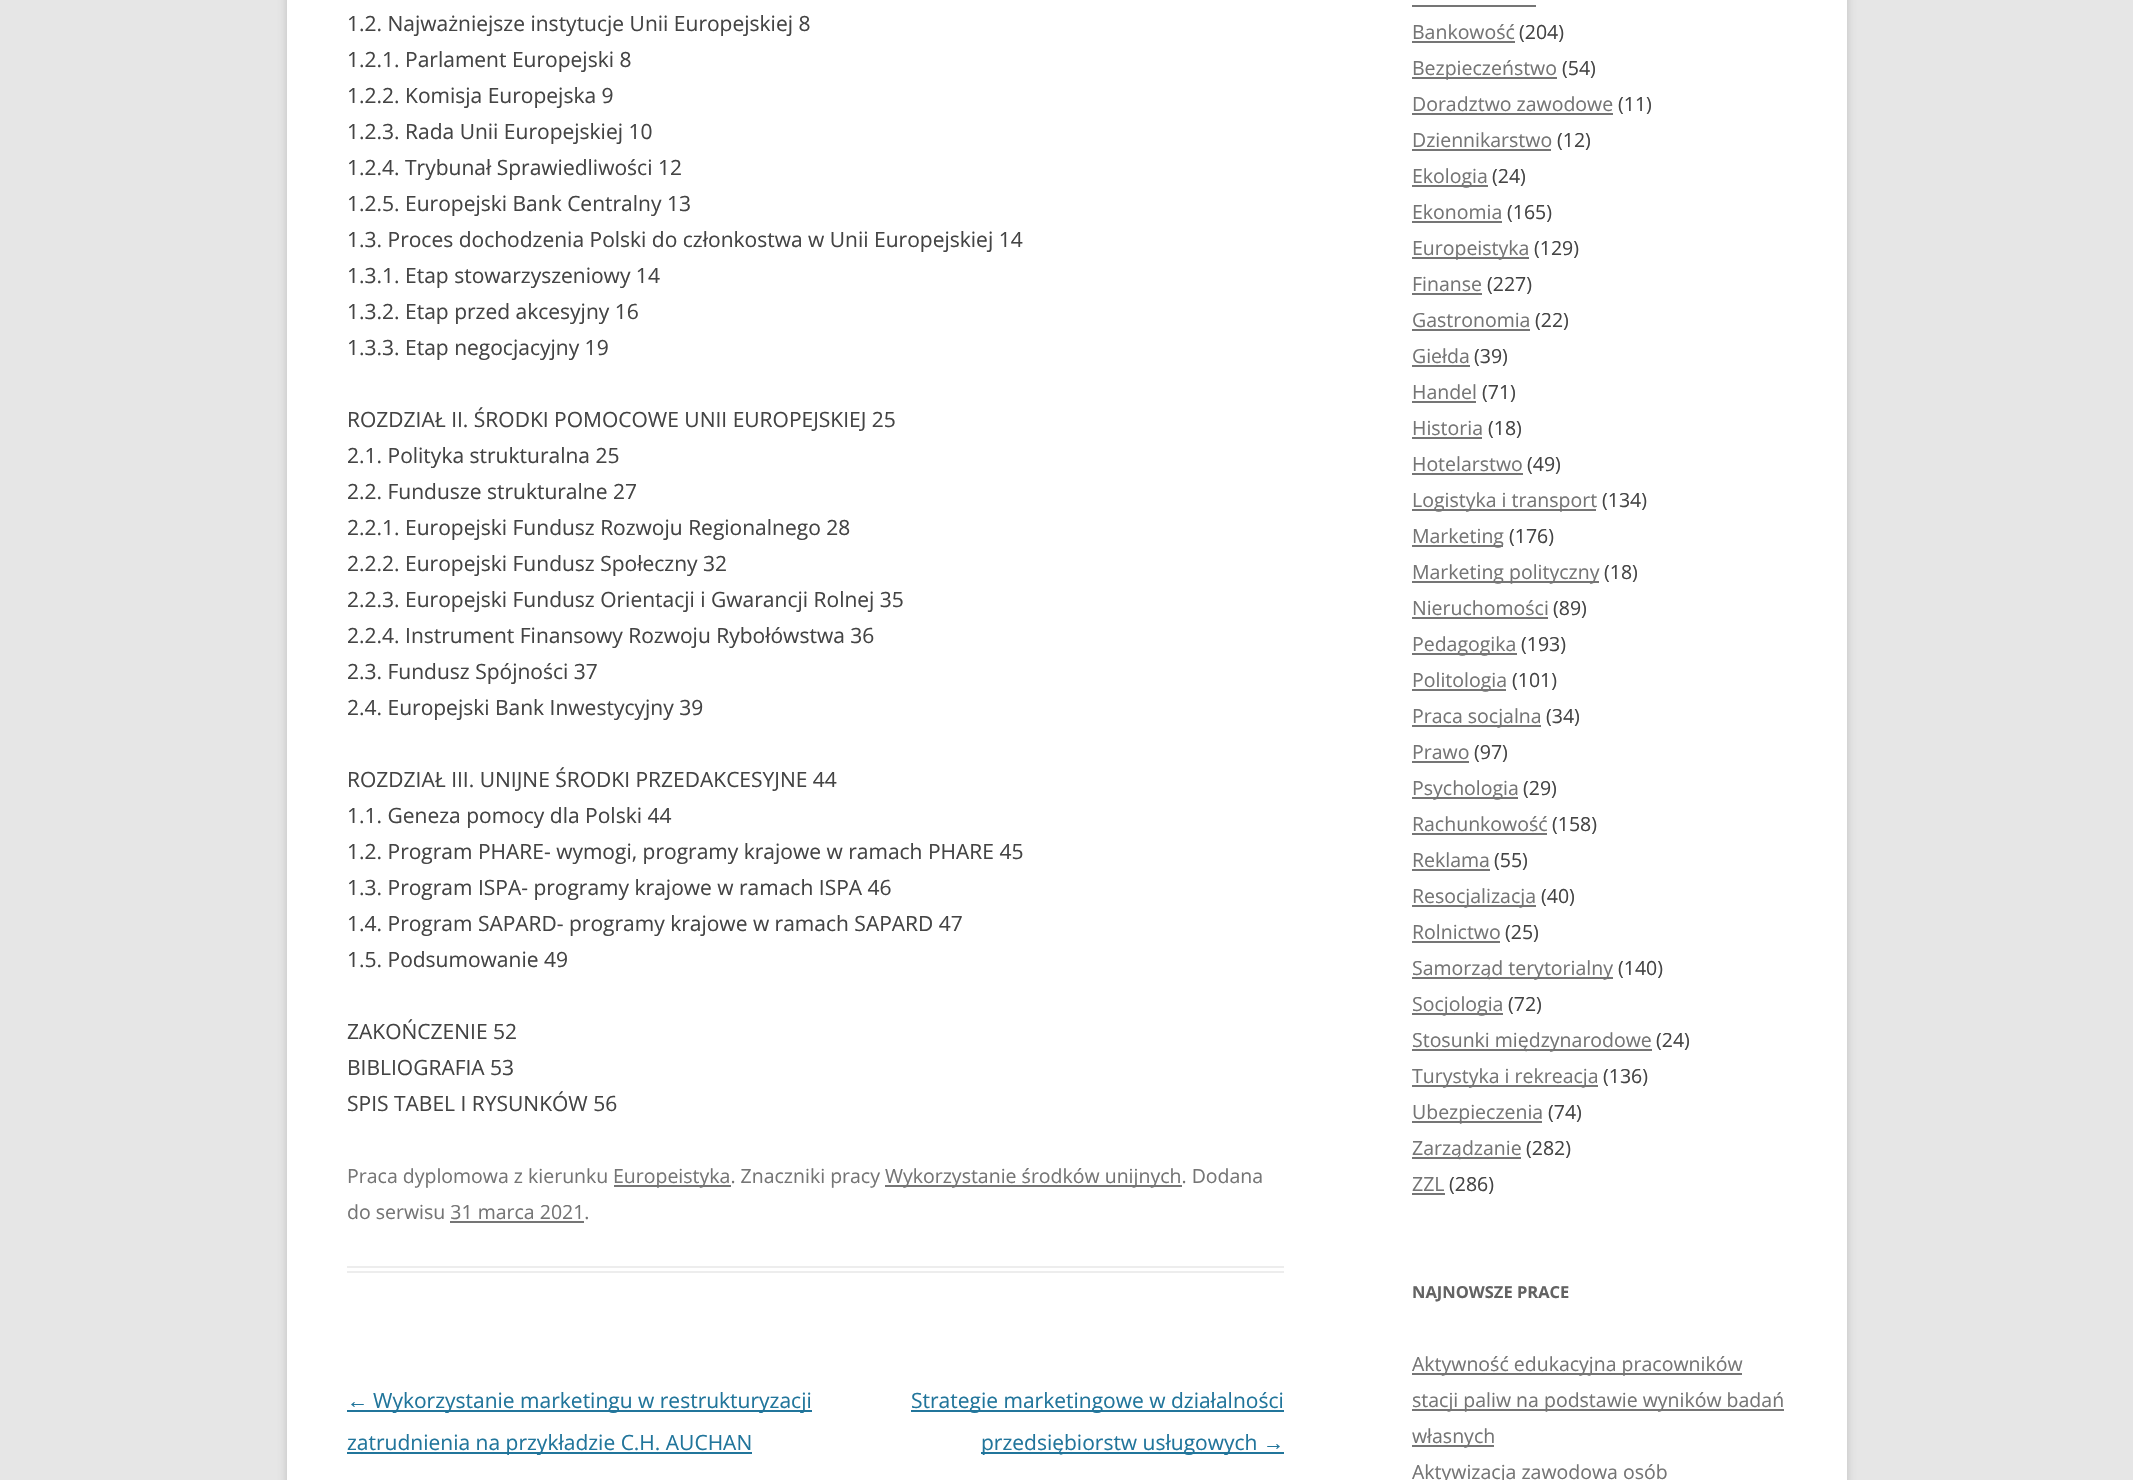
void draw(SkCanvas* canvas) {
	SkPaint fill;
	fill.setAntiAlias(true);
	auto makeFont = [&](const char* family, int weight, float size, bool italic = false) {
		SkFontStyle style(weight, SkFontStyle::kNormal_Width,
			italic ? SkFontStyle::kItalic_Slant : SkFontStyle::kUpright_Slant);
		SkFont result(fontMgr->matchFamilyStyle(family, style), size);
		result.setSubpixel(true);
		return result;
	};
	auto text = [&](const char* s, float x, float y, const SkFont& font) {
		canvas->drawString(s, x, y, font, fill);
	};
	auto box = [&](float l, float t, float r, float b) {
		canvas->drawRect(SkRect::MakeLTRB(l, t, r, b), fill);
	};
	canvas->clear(0xFFE6E6E6);
	fill.setColor(0x4D646464);
	fill.setMaskFilter(SkMaskFilter::MakeBlur(kNormal_SkBlurStyle, 4.5f));
	canvas->drawRect(SkRect::MakeLTRB(287, -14, 1847, 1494), fill);
	fill.setMaskFilter(nullptr);
	fill.setColor(0xFFFFFFFF);
	box(287, 0, 1847, 1480);
	fill.setColor(0xFFEDEDED);
	box(347, 1266, 1284, 1268);
	box(347, 1271, 1284, 1273);
	fill.setColor(0xFF757575);
	box(614, 1185, 731, 1187);
	box(885, 1185, 1182, 1187);
	box(450, 1221, 584, 1223);
	fill.setColor(0xFF21759B);
	box(347, 1410, 812, 1412);
	box(347, 1452, 752, 1454);
	box(911, 1410, 1284, 1412);
	box(981, 1452, 1284, 1454);
	fill.setColor(0xFF757575);
	box(1412, 5, 1536, 7);
	box(1412, 41, 1515, 43);
	box(1412, 77, 1557, 79);
	box(1412, 113, 1613, 115);
	box(1412, 149, 1551, 151);
	box(1412, 185, 1488, 187);
	box(1412, 221, 1502, 223);
	box(1412, 257, 1529, 259);
	box(1412, 293, 1482, 295);
	box(1412, 329, 1530, 331);
	box(1412, 365, 1470, 367);
	box(1412, 401, 1476, 403);
	box(1412, 437, 1482, 439);
	box(1412, 473, 1523, 475);
	box(1412, 509, 1596, 511);
	box(1412, 545, 1503, 547);
	box(1412, 581, 1599, 583);
	box(1412, 617, 1548, 619);
	box(1412, 653, 1517, 655);
	box(1412, 689, 1506, 691);
	box(1412, 725, 1541, 727);
	box(1412, 761, 1469, 763);
	box(1412, 797, 1518, 799);
	box(1412, 833, 1547, 835);
	box(1412, 869, 1490, 871);
	box(1412, 905, 1536, 907);
	box(1412, 941, 1500, 943);
	box(1412, 977, 1613, 979);
	box(1412, 1013, 1503, 1015);
	box(1412, 1049, 1652, 1051);
	box(1412, 1085, 1598, 1087);
	box(1412, 1121, 1542, 1123);
	box(1412, 1157, 1521, 1159);
	box(1412, 1193, 1445, 1195);
	box(1412, 1373, 1742, 1375);
	box(1412, 1409, 1784, 1411);
	box(1412, 1445, 1494, 1447);
	auto font1 = makeFont("Open Sans", 400, 21);
	fill.setColor(0xFF444444);
	text("1.2. Najważniejsze instytucje Unii Europejskiej 8", 347, 31, font1);
	text("1.2.1. Parlament Europejski 8", 347, 67, font1);
	text("1.2.2. Komisja Europejska 9", 347, 103, font1);
	text("1.2.3. Rada Unii Europejskiej 10", 347, 139, font1);
	text("1.2.4. Trybunał Sprawiedliwości 12", 347, 175, font1);
	text("1.2.5. Europejski Bank Centralny 13", 347, 211, font1);
	text("1.3. Proces dochodzenia Polski do członkostwa w Unii Europejskiej 14", 347, 247, font1);
	text("1.3.1. Etap stowarzyszeniowy 14", 347, 283, font1);
	text("1.3.2. Etap przed akcesyjny 16", 347, 319, font1);
	text("1.3.3. Etap negocjacyjny 19", 347, 355, font1);
	text("ROZDZIAŁ II. ŚRODKI POMOCOWE UNII EUROPEJSKIEJ 25", 347, 427, font1);
	text("2.1. Polityka strukturalna 25", 347, 463, font1);
	text("2.2. Fundusze strukturalne 27", 347, 499, font1);
	text("2.2.1. Europejski Fundusz Rozwoju Regionalnego 28", 347, 535, font1);
	text("2.2.2. Europejski Fundusz Społeczny 32", 347, 571, font1);
	text("2.2.3. Europejski Fundusz Orientacji i Gwarancji Rolnej 35", 347, 607, font1);
	text("2.2.4. Instrument Finansowy Rozwoju Rybołówstwa 36", 347, 643, font1);
	text("2.3. Fundusz Spójności 37", 347, 679, font1);
	text("2.4. Europejski Bank Inwestycyjny 39", 347, 715, font1);
	text("ROZDZIAŁ III. UNIJNE ŚRODKI PRZEDAKCESYJNE 44", 347, 787, font1);
	text("1.1. Geneza pomocy dla Polski 44", 347, 823, font1);
	text("1.2. Program PHARE- wymogi, programy krajowe w ramach PHARE 45", 347, 859, font1);
	text("1.3. Program ISPA- programy krajowe w ramach ISPA 46", 347, 895, font1);
	text("1.4. Program SAPARD- programy krajowe w ramach SAPARD 47", 347, 931, font1);
	text("1.5. Podsumowanie 49", 347, 967, font1);
	text("ZAKOŃCZENIE 52", 347, 1039, font1);
	text("BIBLIOGRAFIA 53", 347, 1075, font1);
	text("SPIS TABEL I RYSUNKÓW 56", 347, 1111, font1);
	auto font2 = makeFont("Open Sans", 400, 19.5f);
	fill.setColor(0xFF757575);
	text("Praca dyplomowa z kierunku", 347, 1183, font2);
	text("Europeistyka. Znaczniki pracy", 613, 1183, font2);
	text("Wykorzystanie środków unijnych. Dodana", 885, 1183, font2);
	text("do serwisu 31 marca 2021.", 347, 1219, font2);
	auto font3 = makeFont("Liberation Sans", 400, 21);
	fill.setColor(0xFF21759B);
	text("←", 347, 1408, font3);
	text("Wykorzystanie marketingu w restrukturyzacji", 373, 1408, font1);
	text("zatrudnienia na przykładzie C.H. AUCHAN", 347, 1450, font1);
	text("Strategie marketingowe w działalności", 911, 1408, font1);
	text("przedsiębiorstw usługowych", 981, 1450, font1);
	text("→", 1263, 1450, font3);
	fill.setColor(0xFF757575);
	text("Bankowość", 1412, 39, font2);
	fill.setColor(0xFF444444);
	text("(204)", 1519, 39, font2);
	fill.setColor(0xFF757575);
	text("Bezpieczeństwo", 1412, 75, font2);
	fill.setColor(0xFF444444);
	text("(54)", 1562, 75, font2);
	fill.setColor(0xFF757575);
	text("Doradztwo zawodowe", 1412, 111, font2);
	fill.setColor(0xFF444444);
	text("(11)", 1618, 111, font2);
	fill.setColor(0xFF757575);
	text("Dziennikarstwo", 1412, 147, font2);
	fill.setColor(0xFF444444);
	text("(12)", 1557, 147, font2);
	fill.setColor(0xFF757575);
	text("Ekologia", 1412, 183, font2);
	fill.setColor(0xFF444444);
	text("(24)", 1492, 183, font2);
	fill.setColor(0xFF757575);
	text("Ekonomia", 1412, 219, font2);
	fill.setColor(0xFF444444);
	text("(165)", 1507, 219, font2);
	fill.setColor(0xFF757575);
	text("Europeistyka", 1412, 255, font2);
	fill.setColor(0xFF444444);
	text("(129)", 1534, 255, font2);
	fill.setColor(0xFF757575);
	text("Finanse", 1412, 291, font2);
	fill.setColor(0xFF444444);
	text("(227)", 1487, 291, font2);
	fill.setColor(0xFF757575);
	text("Gastronomia", 1412, 327, font2);
	fill.setColor(0xFF444444);
	text("(22)", 1535, 327, font2);
	fill.setColor(0xFF757575);
	text("Giełda", 1412, 363, font2);
	fill.setColor(0xFF444444);
	text("(39)", 1474, 363, font2);
	fill.setColor(0xFF757575);
	text("Handel", 1412, 399, font2);
	fill.setColor(0xFF444444);
	text("(71)", 1482, 399, font2);
	fill.setColor(0xFF757575);
	text("Historia", 1412, 435, font2);
	fill.setColor(0xFF444444);
	text("(18)", 1488, 435, font2);
	fill.setColor(0xFF757575);
	text("Hotelarstwo", 1412, 471, font2);
	fill.setColor(0xFF444444);
	text("(49)", 1527, 471, font2);
	fill.setColor(0xFF757575);
	text("Logistyka i transport", 1412, 507, font2);
	fill.setColor(0xFF444444);
	text("(134)", 1602, 507, font2);
	fill.setColor(0xFF757575);
	text("Marketing", 1412, 543, font2);
	fill.setColor(0xFF444444);
	text("(176)", 1509, 543, font2);
	fill.setColor(0xFF757575);
	text("Marketing polityczny", 1412, 579, font2);
	fill.setColor(0xFF444444);
	text("(18)", 1604, 579, font2);
	fill.setColor(0xFF757575);
	text("Nieruchomości", 1412, 615, font2);
	fill.setColor(0xFF444444);
	text("(89)", 1553, 615, font2);
	fill.setColor(0xFF757575);
	text("Pedagogika", 1412, 651, font2);
	fill.setColor(0xFF444444);
	text("(193)", 1521, 651, font2);
	fill.setColor(0xFF757575);
	text("Politologia", 1412, 687, font2);
	fill.setColor(0xFF444444);
	text("(101)", 1512, 687, font2);
	fill.setColor(0xFF757575);
	text("Praca socjalna", 1412, 723, font2);
	fill.setColor(0xFF444444);
	text("(34)", 1546, 723, font2);
	fill.setColor(0xFF757575);
	text("Prawo", 1412, 759, font2);
	fill.setColor(0xFF444444);
	text("(97)", 1474, 759, font2);
	fill.setColor(0xFF757575);
	text("Psychologia", 1412, 795, font2);
	fill.setColor(0xFF444444);
	text("(29)", 1523, 795, font2);
	fill.setColor(0xFF757575);
	text("Rachunkowość", 1412, 831, font2);
	fill.setColor(0xFF444444);
	text("(158)", 1552, 831, font2);
	fill.setColor(0xFF757575);
	text("Reklama", 1412, 867, font2);
	fill.setColor(0xFF444444);
	text("(55)", 1494, 867, font2);
	fill.setColor(0xFF757575);
	text("Resocjalizacja", 1412, 903, font2);
	fill.setColor(0xFF444444);
	text("(40)", 1541, 903, font2);
	fill.setColor(0xFF757575);
	text("Rolnictwo", 1412, 939, font2);
	fill.setColor(0xFF444444);
	text("(25)", 1505, 939, font2);
	fill.setColor(0xFF757575);
	text("Samorząd terytorialny", 1412, 975, font2);
	fill.setColor(0xFF444444);
	text("(140)", 1618, 975, font2);
	fill.setColor(0xFF757575);
	text("Socjologia", 1412, 1011, font2);
	fill.setColor(0xFF444444);
	text("(72)", 1508, 1011, font2);
	fill.setColor(0xFF757575);
	text("Stosunki międzynarodowe", 1412, 1047, font2);
	fill.setColor(0xFF444444);
	text("(24)", 1656, 1047, font2);
	fill.setColor(0xFF757575);
	text("Turystyka i rekreacja", 1412, 1083, font2);
	fill.setColor(0xFF444444);
	text("(136)", 1603, 1083, font2);
	fill.setColor(0xFF757575);
	text("Ubezpieczenia", 1412, 1119, font2);
	fill.setColor(0xFF444444);
	text("(74)", 1548, 1119, font2);
	fill.setColor(0xFF757575);
	text("Zarządzanie", 1412, 1155, font2);
	fill.setColor(0xFF444444);
	text("(282)", 1526, 1155, font2);
	fill.setColor(0xFF757575);
	text("ZZL", 1412, 1191, font2);
	fill.setColor(0xFF444444);
	text("(286)", 1449, 1191, font2);
	auto font4 = makeFont("Open Sans", 700, 16.5f);
	fill.setColor(0xFF636363);
	text("NAJNOWSZE PRACE", 1412, 1298, font4);
	fill.setColor(0xFF757575);
	text("Aktywność edukacyjna pracowników", 1412, 1371, font2);
	text("stacji paliw na podstawie wyników badań", 1412, 1407, font2);
	text("własnych", 1412, 1443, font2);
	text("Aktywizacja zawodowa osób", 1412, 1479, font2);
}
